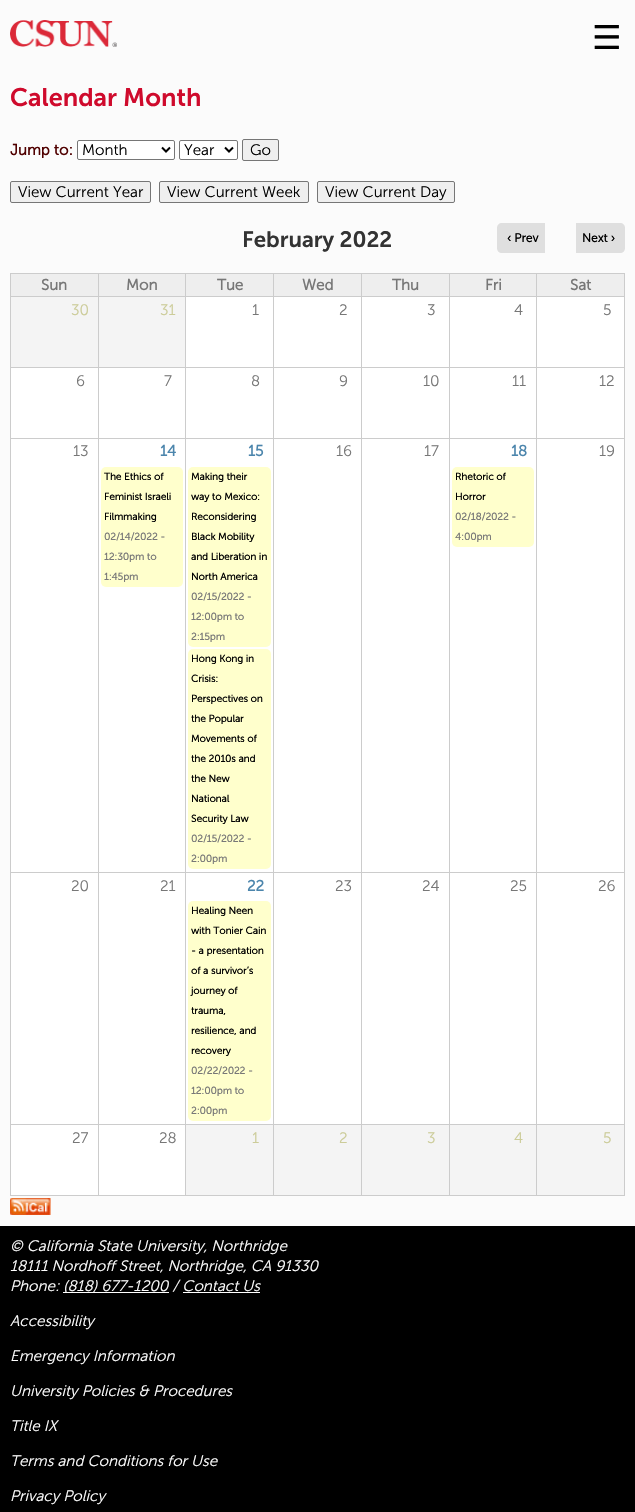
void draw(SkCanvas* canvas) {
	SkPaint fill;
	fill.setAntiAlias(true);
	auto makeFont = [&](const char* family, int weight, float size, bool italic = false) {
		SkFontStyle style(weight, SkFontStyle::kNormal_Width,
			italic ? SkFontStyle::kItalic_Slant : SkFontStyle::kUpright_Slant);
		SkFont result(fontMgr->matchFamilyStyle(family, style), size);
		result.setSubpixel(true);
		return result;
	};
	auto text = [&](const char* s, float x, float y, const SkFont& font) {
		canvas->drawString(s, x, y, font, fill);
	};
	auto box = [&](float l, float t, float r, float b) {
		canvas->drawRect(SkRect::MakeLTRB(l, t, r, b), fill);
	};
	auto roundBox = [&](float l, float t, float r, float b, float radius) {
		canvas->drawRoundRect(SkRect::MakeLTRB(l, t, r, b), radius, radius, fill);
	};
	auto picture = [&](const char* path, float l, float t, float r, float b) {
		auto image = SkImages::DeferredFromEncodedData(SkData::MakeFromFileName(path));
		canvas->drawImageRect(image, SkRect::MakeLTRB(l, t, r, b), SkSamplingOptions());
	};
	canvas->clear(0xFFFBFBFB);
	picture("image0.png", 10, 20, 117, 47);
	fill.setColor(0xFFFFFFFF);
	canvas->drawRoundRect(SkRect::MakeLTRB(77.5f, 140.5f, 174.5f, 159.5f), 1.5f, 1.5f, fill);
	fill.setStyle(SkPaint::kStroke_Style);
	fill.setStrokeWidth(1);
	fill.setColor(0xFF767676);
	canvas->drawRoundRect(SkRect::MakeLTRB(77.5f, 140.5f, 174.5f, 159.5f), 1.5f, 1.5f, fill);
	fill.setStrokeWidth(2);
	fill.setColor(0xFF000000);
	canvas->drawPath(SkPathBuilder().moveTo(162, 147.5f).lineTo(166, 151.5f).lineTo(170, 147.5f).detach(), fill);
	fill.setStyle(SkPaint::kFill_Style);
	fill.setColor(0xFFFFFFFF);
	canvas->drawRoundRect(SkRect::MakeLTRB(179.5f, 140.5f, 237.5f, 159.5f), 1.5f, 1.5f, fill);
	fill.setStyle(SkPaint::kStroke_Style);
	fill.setStrokeWidth(1);
	fill.setColor(0xFF767676);
	canvas->drawRoundRect(SkRect::MakeLTRB(179.5f, 140.5f, 237.5f, 159.5f), 1.5f, 1.5f, fill);
	fill.setStrokeWidth(2);
	fill.setColor(0xFF000000);
	canvas->drawPath(SkPathBuilder().moveTo(225, 147.5f).lineTo(229, 151.5f).lineTo(233, 147.5f).detach(), fill);
	fill.setStyle(SkPaint::kFill_Style);
	fill.setColor(0xFFEFEFEF);
	canvas->drawRoundRect(SkRect::MakeLTRB(242.5f, 139.5f, 278.5f, 160.5f), 1.5f, 1.5f, fill);
	fill.setStyle(SkPaint::kStroke_Style);
	fill.setStrokeWidth(1);
	fill.setColor(0xFF767676);
	canvas->drawRoundRect(SkRect::MakeLTRB(242.5f, 139.5f, 278.5f, 160.5f), 1.5f, 1.5f, fill);
	fill.setStyle(SkPaint::kFill_Style);
	fill.setColor(0xFFEFEFEF);
	canvas->drawRoundRect(SkRect::MakeLTRB(10.5f, 181.5f, 150.5f, 202.5f), 1.5f, 1.5f, fill);
	fill.setStyle(SkPaint::kStroke_Style);
	fill.setColor(0xFF767676);
	canvas->drawRoundRect(SkRect::MakeLTRB(10.5f, 181.5f, 150.5f, 202.5f), 1.5f, 1.5f, fill);
	fill.setStyle(SkPaint::kFill_Style);
	fill.setColor(0xFFEFEFEF);
	canvas->drawRoundRect(SkRect::MakeLTRB(159.5f, 181.5f, 308.5f, 202.5f), 1.5f, 1.5f, fill);
	fill.setStyle(SkPaint::kStroke_Style);
	fill.setColor(0xFF767676);
	canvas->drawRoundRect(SkRect::MakeLTRB(159.5f, 181.5f, 308.5f, 202.5f), 1.5f, 1.5f, fill);
	fill.setStyle(SkPaint::kFill_Style);
	fill.setColor(0xFFEFEFEF);
	canvas->drawRoundRect(SkRect::MakeLTRB(317.5f, 181.5f, 454.5f, 202.5f), 1.5f, 1.5f, fill);
	fill.setStyle(SkPaint::kStroke_Style);
	fill.setColor(0xFF767676);
	canvas->drawRoundRect(SkRect::MakeLTRB(317.5f, 181.5f, 454.5f, 202.5f), 1.5f, 1.5f, fill);
	fill.setStyle(SkPaint::kFill_Style);
	fill.setColor(0xFFDFDFDF);
	canvas->drawPath(SkPathBuilder().moveTo(502, 223).lineTo(545, 223).lineTo(545, 253).lineTo(502, 253).cubicTo(499, 253, 497, 251, 497, 248).lineTo(497, 228).cubicTo(497, 225, 499, 223, 502, 223).close().detach(), fill);
	canvas->drawPath(SkPathBuilder().moveTo(576, 223).lineTo(620, 223).cubicTo(623, 223, 625, 225, 625, 228).lineTo(625, 248).cubicTo(625, 251, 623, 253, 620, 253).lineTo(576, 253).close().detach(), fill);
	fill.setColor(0xFFEEEEEE);
	box(11, 274, 98, 296);
	fill.setColor(0xFFCCCCCC);
	box(536, 273, 625, 274);
	box(536, 296, 625, 297);
	fill.setColor(0xFFFFFFFF);
	box(186, 297, 624, 367);
	fill.setColor(0xFFCCCCCC);
	box(536, 367, 625, 368);
	fill.setColor(0xFFFFFFFF);
	box(11, 368, 624, 438);
	fill.setColor(0xFFCCCCCC);
	box(536, 438, 625, 439);
	fill.setColor(0xFFFFFFFF);
	box(11, 439, 624, 872);
	fill.setColor(0xFFCCCCCC);
	box(536, 872, 625, 873);
	fill.setColor(0xFFFFFFFF);
	box(11, 873, 624, 1124);
	fill.setColor(0xFFCCCCCC);
	box(536, 1124, 625, 1125);
	box(624, 1149, 625, 1196);
	box(536, 1195, 625, 1196);
	box(536, 1149, 537, 1196);
	box(536, 1124, 537, 1150);
	box(449, 1124, 537, 1125);
	box(536, 897, 537, 1125);
	box(536, 872, 537, 898);
	box(449, 872, 537, 873);
	box(536, 463, 537, 873);
	box(536, 438, 537, 464);
	box(449, 438, 537, 439);
	box(536, 392, 537, 439);
	box(536, 367, 537, 393);
	box(449, 367, 537, 368);
	box(536, 321, 537, 368);
	box(536, 296, 537, 322);
	box(449, 296, 537, 297);
	box(536, 273, 537, 297);
	box(449, 273, 537, 274);
	box(449, 1195, 537, 1196);
	box(449, 1149, 450, 1196);
	box(449, 1124, 450, 1150);
	box(361, 1124, 450, 1125);
	box(449, 897, 450, 1125);
	box(449, 872, 450, 898);
	box(361, 872, 450, 873);
	box(449, 463, 450, 873);
	box(449, 438, 450, 464);
	box(361, 438, 450, 439);
	box(449, 392, 450, 439);
	box(449, 367, 450, 393);
	box(361, 367, 450, 368);
	box(449, 321, 450, 368);
	box(449, 296, 450, 322);
	box(361, 296, 450, 297);
	box(449, 273, 450, 297);
	box(361, 273, 450, 274);
	box(361, 1195, 450, 1196);
	box(361, 1149, 362, 1196);
	box(361, 1124, 362, 1150);
	box(273, 1124, 362, 1125);
	box(361, 897, 362, 1125);
	box(361, 872, 362, 898);
	box(273, 872, 362, 873);
	box(361, 463, 362, 873);
	box(361, 438, 362, 464);
	box(273, 438, 362, 439);
	box(361, 392, 362, 439);
	box(361, 367, 362, 393);
	box(273, 367, 362, 368);
	box(361, 321, 362, 368);
	box(361, 296, 362, 322);
	box(273, 296, 362, 297);
	box(361, 273, 362, 297);
	box(273, 273, 362, 274);
	box(273, 1195, 362, 1196);
	box(273, 1149, 274, 1196);
	box(273, 1124, 274, 1150);
	box(185, 1124, 274, 1125);
	box(273, 897, 274, 1125);
	box(273, 872, 274, 898);
	box(185, 872, 274, 873);
	box(273, 463, 274, 873);
	box(273, 438, 274, 464);
	box(185, 438, 274, 439);
	box(273, 392, 274, 439);
	box(273, 367, 274, 393);
	box(185, 367, 274, 368);
	box(273, 321, 274, 368);
	box(273, 296, 274, 322);
	box(185, 296, 274, 297);
	box(273, 273, 274, 297);
	box(185, 273, 274, 274);
	box(185, 1195, 274, 1196);
	box(185, 1149, 186, 1196);
	box(185, 1124, 186, 1150);
	box(98, 1124, 186, 1125);
	box(185, 897, 186, 1125);
	box(185, 872, 186, 898);
	box(98, 872, 186, 873);
	box(185, 463, 186, 873);
	box(185, 438, 186, 464);
	box(98, 438, 186, 439);
	box(185, 392, 186, 439);
	box(185, 367, 186, 393);
	box(98, 367, 186, 368);
	box(185, 321, 186, 368);
	box(185, 296, 186, 322);
	box(98, 296, 186, 297);
	box(185, 273, 186, 297);
	box(98, 273, 186, 274);
	fill.setColor(0xFFFFFFFF);
	box(11, 1125, 185, 1195);
	fill.setColor(0xFFCCCCCC);
	box(98, 1195, 186, 1196);
	box(98, 1149, 99, 1196);
	box(98, 1124, 99, 1150);
	box(10, 1124, 99, 1125);
	box(98, 897, 99, 1125);
	box(98, 872, 99, 898);
	box(10, 872, 99, 873);
	box(98, 463, 99, 873);
	box(98, 438, 99, 464);
	box(10, 438, 99, 439);
	box(98, 392, 99, 439);
	box(98, 367, 99, 393);
	box(10, 367, 99, 368);
	box(98, 321, 99, 368);
	box(98, 296, 99, 322);
	box(10, 296, 99, 297);
	box(98, 273, 99, 297);
	box(10, 273, 99, 274);
	box(10, 1195, 99, 1196);
	box(10, 1149, 11, 1196);
	box(10, 897, 11, 1150);
	box(10, 463, 11, 898);
	box(10, 392, 11, 464);
	box(10, 321, 11, 393);
	box(10, 296, 11, 322);
	box(10, 273, 11, 297);
	fill.setColor(0xFFEEEEEE);
	box(99, 274, 185, 296);
	box(186, 274, 273, 296);
	box(274, 274, 361, 296);
	box(362, 274, 449, 296);
	box(450, 274, 536, 296);
	box(537, 274, 624, 296);
	fill.setColor(0xFFCCCCCC);
	box(624, 897, 625, 1150);
	box(624, 463, 625, 898);
	box(624, 392, 625, 464);
	box(624, 321, 625, 393);
	box(624, 296, 625, 322);
	box(624, 273, 625, 297);
	fill.setColor(0xFFF4F4F4);
	box(11, 297, 98, 367);
	box(99, 297, 185, 367);
	fill.setColor(0xFFFFFFCC);
	roundBox(101, 467, 183, 587, 5);
	roundBox(188, 467, 271, 647, 5);
	roundBox(188, 649, 271, 869, 5);
	roundBox(452, 467, 534, 547, 5);
	roundBox(188, 901, 271, 1121, 5);
	fill.setColor(0xFFF4F4F4);
	box(186, 1125, 273, 1195);
	box(274, 1125, 361, 1195);
	box(362, 1125, 449, 1195);
	box(450, 1125, 536, 1195);
	box(537, 1125, 624, 1195);
	picture("image1.png", 10, 1198, 51, 1215);
	fill.setColor(0xFF000000);
	box(0, 1226, 635, 1512);
	fill.setColor(0xFFFFFFFF);
	box(63, 1292, 169, 1293);
	box(183, 1292, 260, 1293);
	auto font1 = makeFont("DejaVu Sans", 400, 33);
	fill.setColor(0xFF000000);
	text("☰", 592, 49, font1);
	auto font2 = makeFont("Museo Sans", 600, 25.25f);
	fill.setColor(0xFFCF0A2C);
	text("Calendar Month", 10, 106, font2);
	auto font3 = makeFont("Museo Sans", 700, 15.2f);
	fill.setColor(0xFF500000);
	text("Jump to:", 10, 155, font3);
	auto font4 = makeFont("Museo Sans", 300, 15.2f);
	fill.setColor(0xFF000000);
	text("Month", 82, 155, font4);
	text("Year", 184, 155, font4);
	text("Go", 250, 155, font4);
	text("View Current Year", 18, 197, font4);
	text("View Current Week", 167, 197, font4);
	text("View Current Day", 325, 197, font4);
	auto font5 = makeFont("Museo Sans", 600, 22.25f);
	fill.setColor(0xFF333333);
	text("February 2022", 242, 247, font5);
	auto font6 = makeFont("Museo Sans", 700, 12);
	fill.setColor(0xFF000000);
	text("‹ Prev", 507, 242, font6);
	text("Next ›", 582, 242, font6);
	fill.setColor(0xFF777777);
	text("Sun", 41, 290, font3);
	text("Mon", 126, 290, font3);
	text("Tue", 217, 290, font3);
	text("Wed", 302, 290, font3);
	text("Thu", 392, 290, font3);
	text("Fri", 485, 290, font3);
	text("Sat", 570, 290, font3);
	fill.setColor(0xFFCCCC99);
	text("30", 71, 315, font4);
	text("31", 160, 315, font4);
	fill.setColor(0xFF777777);
	text("1", 252, 315, font4);
	text("2", 339, 315, font4);
	text("3", 427, 315, font4);
	text("4", 514, 315, font4);
	text("5", 603, 315, font4);
	text("6", 76, 386, font4);
	text("7", 164, 386, font4);
	text("8", 251, 386, font4);
	text("9", 339, 386, font4);
	text("10", 423, 386, font4);
	text("11", 512, 386, font4);
	text("12", 599, 386, font4);
	text("13", 73, 456, font4);
	fill.setColor(0xFF4B85AC);
	text("14", 160, 456, font3);
	text("15", 248, 456, font3);
	fill.setColor(0xFF777777);
	text("16", 336, 456, font4);
	text("17", 424, 456, font4);
	fill.setColor(0xFF4B85AC);
	text("18", 511, 456, font3);
	fill.setColor(0xFF777777);
	text("19", 599, 456, font4);
	auto font7 = makeFont("Museo Sans", 700, 10);
	fill.setColor(0xFF000000);
	text("The Ethics of", 104, 480, font7);
	text("Feminist Israeli", 104, 500, font7);
	text("Filmmaking", 104, 520, font7);
	fill.setColor(0xFF777777);
	text("02/14/2022 -", 104, 540, font7);
	text("12:30pm to", 104, 560, font7);
	text("1:45pm", 104, 580, font7);
	fill.setColor(0xFF000000);
	text("Making their", 191, 480, font7);
	text("way to Mexico:", 191, 500, font7);
	text("Reconsidering", 191, 520, font7);
	text("Black Mobility", 191, 540, font7);
	text("and Liberation in", 191, 560, font7);
	text("North America", 191, 580, font7);
	fill.setColor(0xFF777777);
	text("02/15/2022 -", 191, 600, font7);
	text("12:00pm to", 191, 620, font7);
	text("2:15pm", 191, 640, font7);
	fill.setColor(0xFF000000);
	text("Hong Kong in", 191, 662, font7);
	text("Crisis:", 191, 682, font7);
	text("Perspectives on", 191, 702, font7);
	text("the Popular", 191, 722, font7);
	text("Movements of", 191, 742, font7);
	text("the 2010s and", 191, 762, font7);
	text("the New", 191, 782, font7);
	text("National", 191, 802, font7);
	text("Security Law", 191, 822, font7);
	fill.setColor(0xFF777777);
	text("02/15/2022 -", 191, 842, font7);
	text("2:00pm", 191, 862, font7);
	fill.setColor(0xFF000000);
	text("Rhetoric of", 455, 480, font7);
	text("Horror", 455, 500, font7);
	fill.setColor(0xFF777777);
	text("02/18/2022 -", 455, 520, font7);
	text("4:00pm", 455, 540, font7);
	text("20", 71, 891, font4);
	text("21", 160, 891, font4);
	fill.setColor(0xFF4B85AC);
	text("22", 247, 891, font3);
	fill.setColor(0xFF777777);
	text("23", 335, 891, font4);
	text("24", 422, 891, font4);
	text("25", 510, 891, font4);
	text("26", 598, 891, font4);
	fill.setColor(0xFF000000);
	text("Healing Neen", 191, 914, font7);
	text("with Tonier Cain", 191, 934, font7);
	text("- a presentation", 191, 954, font7);
	text("of a survivor’s", 191, 974, font7);
	text("journey of", 191, 994, font7);
	text("trauma,", 191, 1014, font7);
	text("resilience, and", 191, 1034, font7);
	text("recovery", 191, 1054, font7);
	fill.setColor(0xFF777777);
	text("02/22/2022 -", 191, 1074, font7);
	text("12:00pm to", 191, 1094, font7);
	text("2:00pm", 191, 1114, font7);
	text("27", 72, 1143, font4);
	text("28", 159, 1143, font4);
	fill.setColor(0xFFCCCC99);
	text("1", 252, 1143, font4);
	text("2", 339, 1143, font4);
	text("3", 427, 1143, font4);
	text("4", 514, 1143, font4);
	text("5", 603, 1143, font4);
	auto font8 = makeFont("Museo Sans", 300, 15.2f, true);
	fill.setColor(0xFFFFFFFF);
	text("© California State University, Northridge", 10, 1251, font8);
	text("18111 Nordhoff Street, Northridge, CA 91330", 10, 1271, font8);
	text("Phone:", 10, 1291, font8);
	text("(818) 677-1200 / Contact Us", 63, 1291, font8);
	text("Accessibility", 10, 1326, font8);
	text("Emergency Information", 10, 1361, font8);
	text("University Policies & Procedures", 10, 1396, font8);
	text("Title IX", 10, 1431, font8);
	text("Terms and Conditions for Use", 10, 1466, font8);
	text("Privacy Policy", 10, 1501, font8);
}
